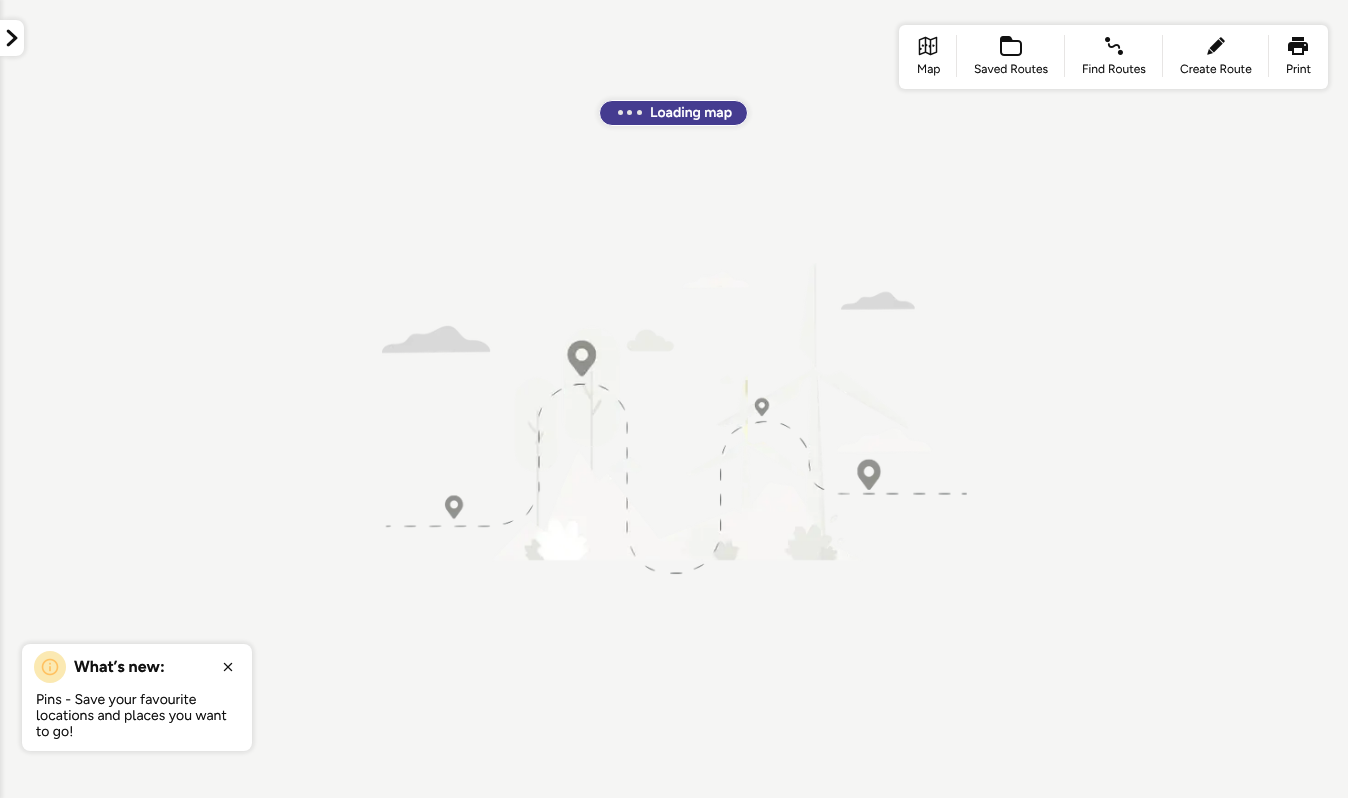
void draw(SkCanvas* canvas) {
	SkPaint fill;
	fill.setAntiAlias(true);
	auto makeFont = [&](const char* family, int weight, float size, bool italic = false) {
		SkFontStyle style(weight, SkFontStyle::kNormal_Width,
			italic ? SkFontStyle::kItalic_Slant : SkFontStyle::kUpright_Slant);
		SkFont result(fontMgr->matchFamilyStyle(family, style), size);
		result.setSubpixel(true);
		return result;
	};
	auto text = [&](const char* s, float x, float y, const SkFont& font) {
		canvas->drawString(s, x, y, font, fill);
	};
	auto box = [&](float l, float t, float r, float b) {
		canvas->drawRect(SkRect::MakeLTRB(l, t, r, b), fill);
	};
	auto roundBox = [&](float l, float t, float r, float b, float radius) {
		canvas->drawRoundRect(SkRect::MakeLTRB(l, t, r, b), radius, radius, fill);
	};
	auto picture = [&](const char* path, float l, float t, float r, float b) {
		auto image = SkImages::DeferredFromEncodedData(SkData::MakeFromFileName(path));
		canvas->drawImageRect(image, SkRect::MakeLTRB(l, t, r, b), SkSamplingOptions());
	};
	canvas->clear(0xFFF5F5F4);
	fill.setColor(0x1A111111);
	fill.setMaskFilter(SkMaskFilter::MakeBlur(kNormal_SkBlurStyle, 2));
	canvas->drawRect(SkRect::MakeLTRB(-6, -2, 2, 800), fill);
	fill.setMaskFilter(nullptr);
	fill.setMaskFilter(SkMaskFilter::MakeBlur(kNormal_SkBlurStyle, 2));
	canvas->drawRoundRect(SkRect::MakeLTRB(-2, 18, 26, 58), 10, 10, fill);
	fill.setMaskFilter(nullptr);
	fill.setColor(0xFFFFFFFF);
	canvas->drawPath(SkPathBuilder().moveTo(0, 20).lineTo(16, 20).cubicTo(20.5f, 20, 24, 23.5f, 24, 28).lineTo(24, 48).cubicTo(24, 52.5f, 20.5f, 56, 16, 56).lineTo(0, 56).close().detach(), fill);
	picture("image0.png", 6, 29, 18, 47);
	fill.setColor(0x1A111111);
	fill.setMaskFilter(SkMaskFilter::MakeBlur(kNormal_SkBlurStyle, 2));
	canvas->drawRoundRect(SkRect::MakeLTRB(897, 23, 1330, 91), 8, 8, fill);
	fill.setMaskFilter(nullptr);
	fill.setColor(0xFFFFFFFF);
	roundBox(899, 25, 1328, 89, 6);
	picture("image1.png", 918, 36, 938, 56);
	fill.setColor(0xFFE7E5E4);
	box(956, 35, 957, 77);
	picture("image2.png", 1000, 36, 1022, 56);
	box(1064, 35, 1065, 77);
	picture("image3.png", 1105, 37, 1123, 55);
	box(1162, 35, 1163, 77);
	picture("image4.png", 1207, 37, 1225, 55);
	box(1268, 35, 1269, 77);
	picture("image5.png", 1288, 37, 1308, 55);
	fill.setColor(0x14303030);
	fill.setMaskFilter(SkMaskFilter::MakeBlur(kNormal_SkBlurStyle, 2));
	canvas->drawRoundRect(SkRect::MakeLTRB(597, 98, 750, 128), 15, 15, fill);
	fill.setMaskFilter(nullptr);
	fill.setColor(0xFF453C90);
	canvas->drawRoundRect(SkRect::MakeLTRB(599.5f, 100.5f, 747.5f, 125.5f), 12.5f, 12.5f, fill);
	fill.setStyle(SkPaint::kStroke_Style);
	fill.setStrokeWidth(1);
	fill.setColor(0xFFFFFFFF);
	canvas->drawRoundRect(SkRect::MakeLTRB(599.5f, 100.5f, 747.5f, 125.5f), 12.5f, 12.5f, fill);
	fill.setStyle(SkPaint::kFill_Style);
	fill.setColor(0xFFE7E5E4);
	canvas->drawCircle(620.5f, 112.5f, 2.5f, fill);
	canvas->drawCircle(629.5f, 112.5f, 2.5f, fill);
	canvas->drawCircle(639.5f, 112.5f, 2.5f, fill);
	picture("image6.png", 382, 263, 967, 575);
	fill.setColor(0x1A111111);
	fill.setMaskFilter(SkMaskFilter::MakeBlur(kNormal_SkBlurStyle, 2));
	canvas->drawRoundRect(SkRect::MakeLTRB(20, 642, 254, 753), 10, 10, fill);
	fill.setMaskFilter(nullptr);
	fill.setColor(0xFFFFFFFF);
	roundBox(22, 644, 252, 751, 8);
	fill.setColor(0xFFFBE9B2);
	canvas->drawCircle(50, 667, 16, fill);
	picture("image7.png", 41, 658, 59, 676);
	picture("image8.png", 223, 662, 233, 672);
	auto font1 = makeFont("Figtree", 400, 12);
	fill.setColor(0xFF111111);
	text("Map", 917, 73, font1);
	text("Saved Routes", 974, 73, font1);
	text("Find Routes", 1082, 73, font1);
	text("Create Route", 1180, 73, font1);
	text("Print", 1286, 73, font1);
	auto font2 = makeFont("Figtree", 600, 14);
	fill.setColor(0xFFFFFFFF);
	text("Loading map", 650, 117, font2);
	auto font3 = makeFont("Figtree", 700, 16);
	fill.setColor(0xFF111111);
	text("What’s new:", 74, 672, font3);
	auto font4 = makeFont("Figtree", 400, 14);
	text("Pins - Save your favourite", 36, 704, font4);
	text("locations and places you want", 36, 720, font4);
	text("to go!", 36, 736, font4);
}
